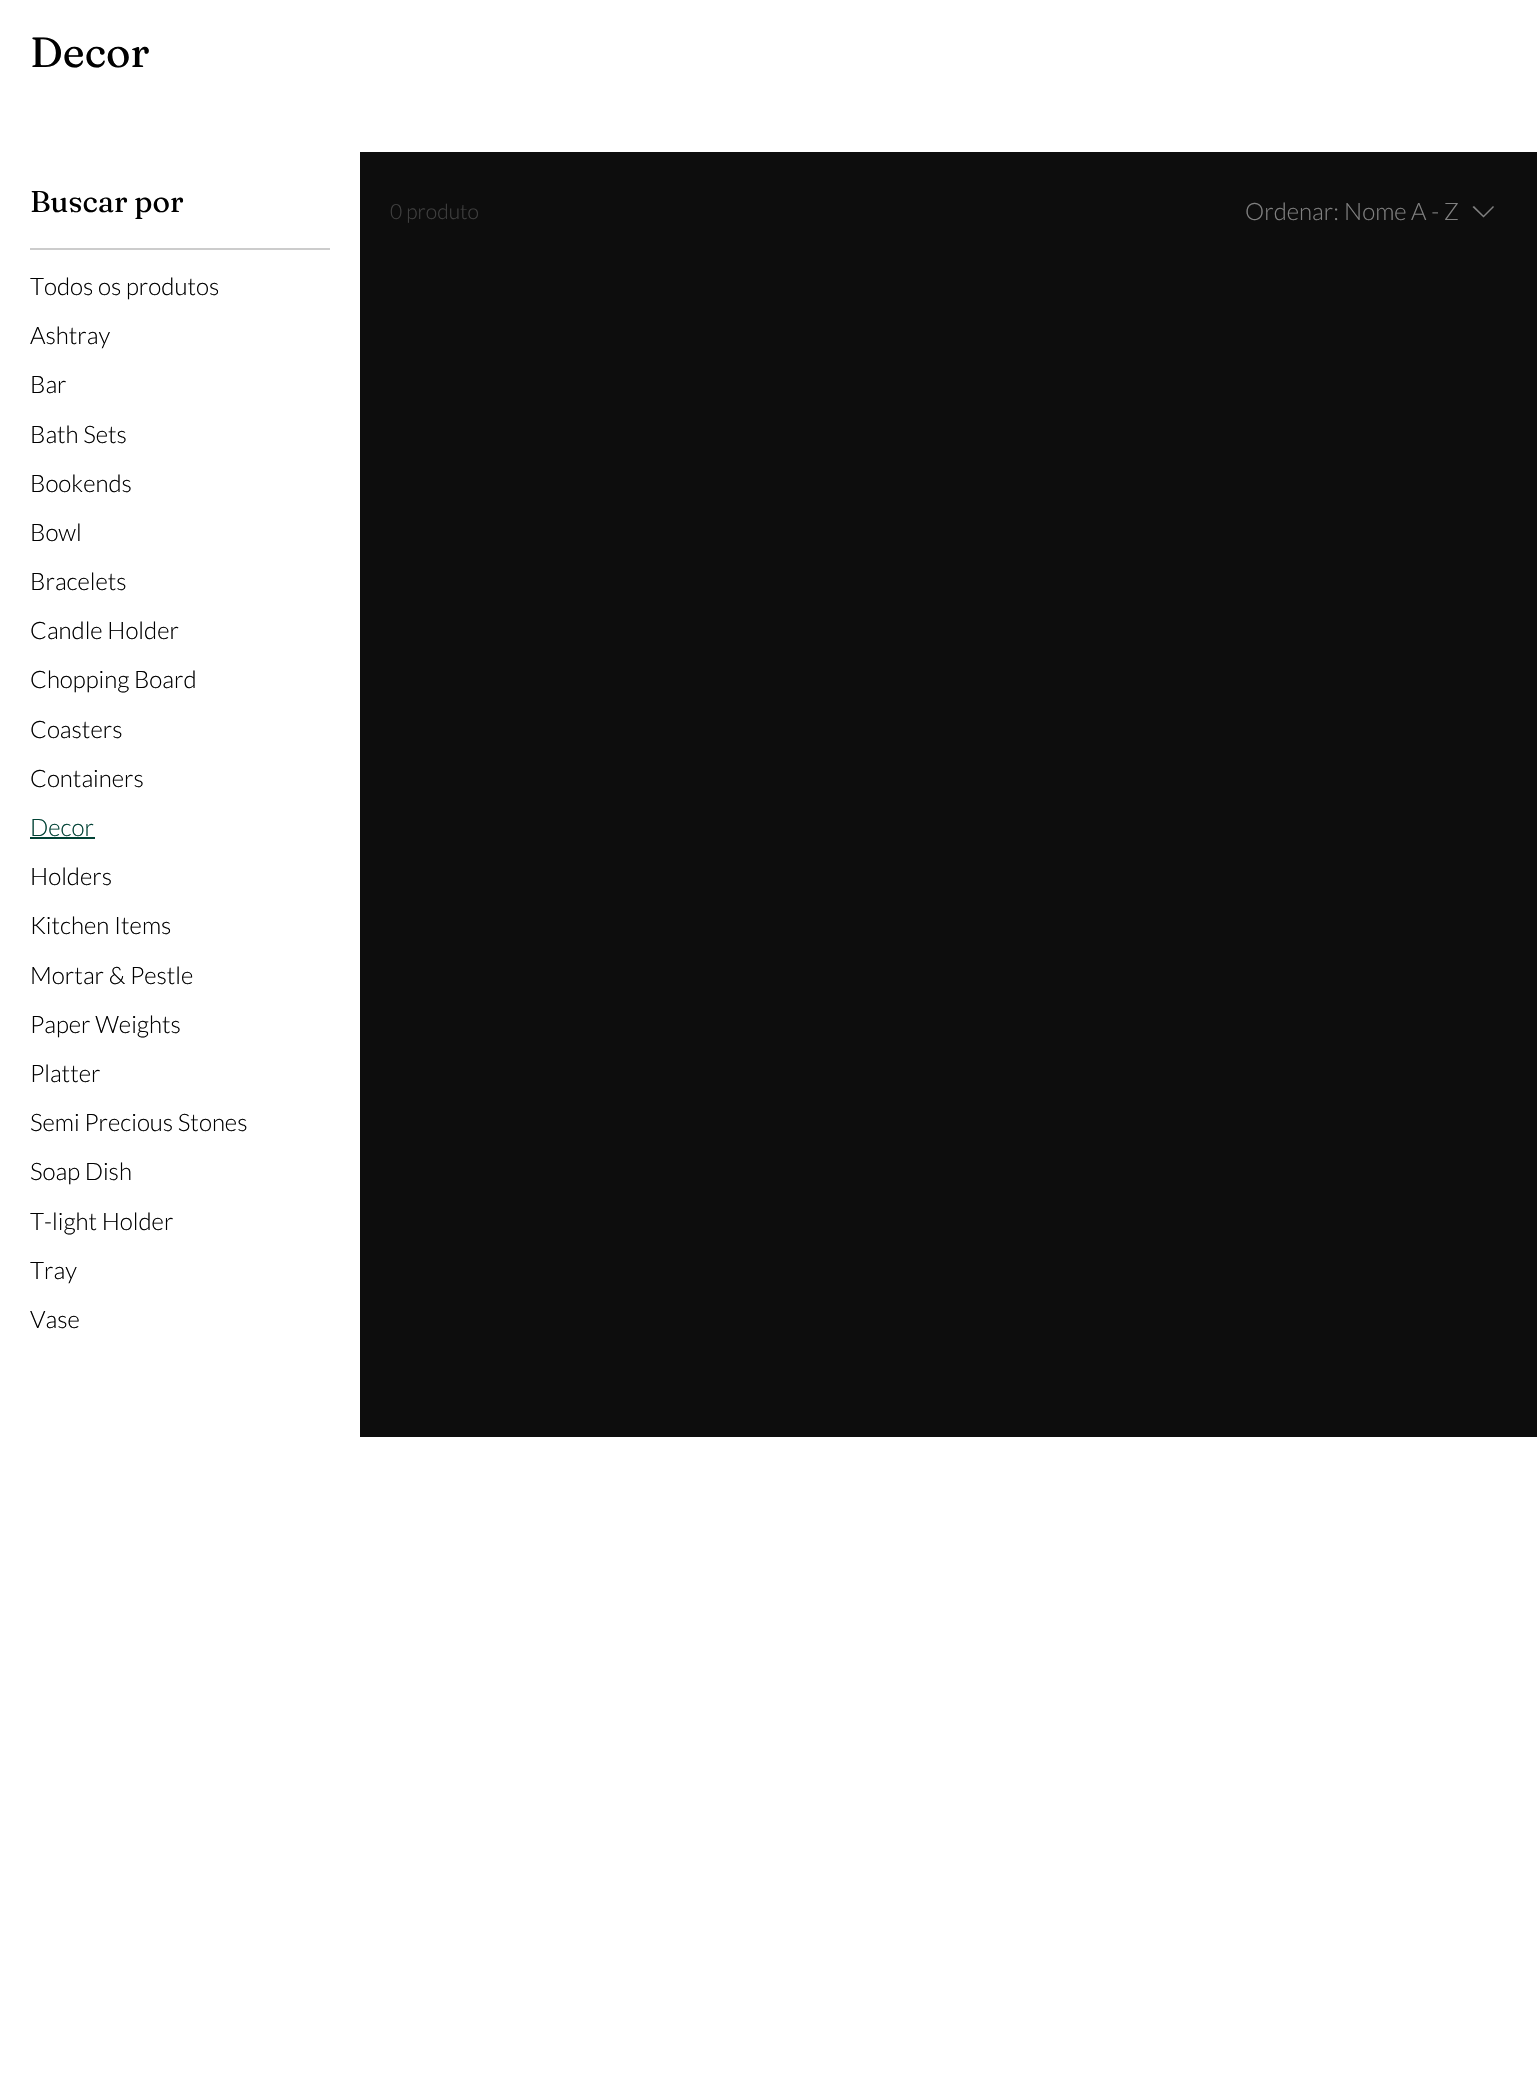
void draw(SkCanvas* canvas) {
	SkPaint fill;
	fill.setAntiAlias(true);
	auto makeFont = [&](const char* family, int weight, float size, bool italic = false) {
		SkFontStyle style(weight, SkFontStyle::kNormal_Width,
			italic ? SkFontStyle::kItalic_Slant : SkFontStyle::kUpright_Slant);
		SkFont result(fontMgr->matchFamilyStyle(family, style), size);
		result.setSubpixel(true);
		return result;
	};
	auto text = [&](const char* s, float x, float y, const SkFont& font) {
		canvas->drawString(s, x, y, font, fill);
	};
	auto box = [&](float l, float t, float r, float b) {
		canvas->drawRect(SkRect::MakeLTRB(l, t, r, b), fill);
	};
	canvas->clear(0xFFFFFFFF);
	fill.setColor(0xFFCCCCCC);
	box(30, 248, 330, 250);
	fill.setColor(0xFF014235);
	box(30, 837, 95, 839);
	fill.setColor(0xFF0D0D0D);
	box(360, 152, 1537, 1437);
	fill.setColor(0xFF808080);
	canvas->drawPath(SkPathBuilder(SkPathFillType::kEvenOdd).moveTo(1493, 206).lineTo(1494, 207).lineTo(1483.5f, 217.5f).lineTo(1472.5f, 207).lineTo(1474, 206).lineTo(1483.5f, 215.5f).close().detach(), fill);
	auto font1 = makeFont("Fraunces", 400, 42);
	fill.setColor(0xFF000000);
	text("Decor", 30, 67, font1);
	auto font2 = makeFont("Fraunces", 400, 30);
	text("Buscar por", 30, 212, font2);
	auto font3 = makeFont("Lato", 300, 24);
	text("Todos os produtos", 30, 295, font3);
	text("Ashtray", 30, 344, font3);
	text("Bar", 30, 393, font3);
	text("Bath Sets", 30, 443, font3);
	text("Bookends", 30, 492, font3);
	text("Bowl", 30, 541, font3);
	text("Bracelets", 30, 590, font3);
	text("Candle Holder", 30, 639, font3);
	text("Chopping Board", 30, 688, font3);
	text("Coasters", 30, 738, font3);
	text("Containers", 30, 787, font3);
	fill.setColor(0xFF014235);
	text("Decor", 30, 836, font3);
	fill.setColor(0xFF000000);
	text("Holders", 30, 885, font3);
	text("Kitchen Items", 30, 934, font3);
	text("Mortar & Pestle", 30, 984, font3);
	text("Paper Weights", 30, 1033, font3);
	text("Platter", 30, 1082, font3);
	text("Semi Precious Stones", 30, 1131, font3);
	text("Soap Dish", 30, 1180, font3);
	text("T-light Holder", 30, 1230, font3);
	text("Tray", 30, 1279, font3);
	text("Vase", 30, 1328, font3);
	auto font4 = makeFont("Lato", 300, 21);
	fill.setColor(0xFF404040);
	text("0 produto", 390, 219, font4);
	fill.setColor(0xFF808080);
	text("Ordenar:", 1245, 220, font3);
	text("Nome A - Z", 1344, 220, font3);
}
